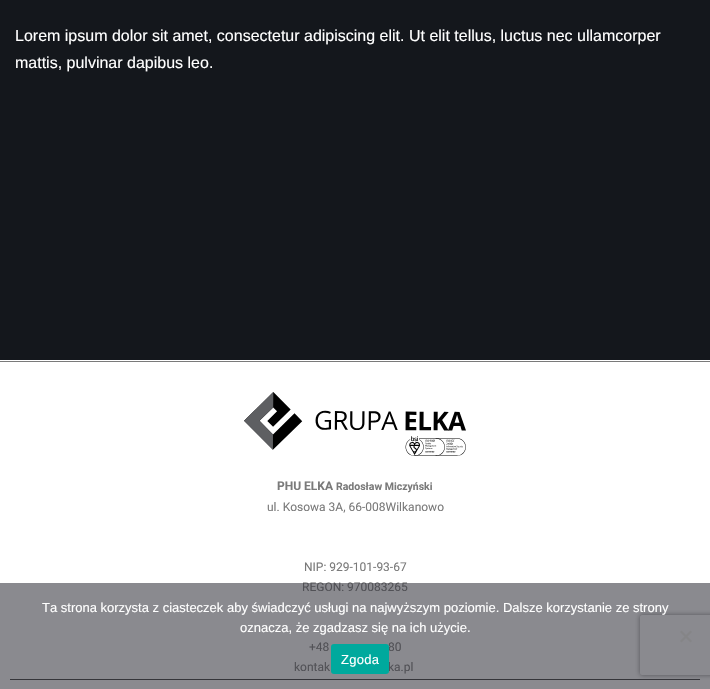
void draw(SkCanvas* canvas) {
	SkPaint fill;
	fill.setAntiAlias(true);
	auto makeFont = [&](const char* family, int weight, float size, bool italic = false) {
		SkFontStyle style(weight, SkFontStyle::kNormal_Width,
			italic ? SkFontStyle::kItalic_Slant : SkFontStyle::kUpright_Slant);
		SkFont result(fontMgr->matchFamilyStyle(family, style), size);
		result.setSubpixel(true);
		return result;
	};
	auto text = [&](const char* s, float x, float y, const SkFont& font) {
		canvas->drawString(s, x, y, font, fill);
	};
	auto spacedText = [&](const char* s, float x, float y, const SkFont& font, const SkPaint& ink, float letter, float word) {
		std::vector<SkGlyphID> glyphs(font.countText(s, strlen(s), SkTextEncoding::kUTF8));
		std::vector<float> xs(glyphs.size());
		font.textToGlyphs(s, strlen(s), SkTextEncoding::kUTF8, glyphs);
		font.getXPos(glyphs, xs, x);
		float extra = 0;
		for (size_t i = 0; i < glyphs.size(); i++) {
			xs[i] += extra;
			extra += letter + word * (glyphs[i] == font.unicharToGlyph(' '));
		}
		canvas->drawTextBlob(SkTextBlob::MakeFromPosHGlyphs(glyphs, xs, y, font), 0, 0, ink);
	};
	auto box = [&](float l, float t, float r, float b) {
		canvas->drawRect(SkRect::MakeLTRB(l, t, r, b), fill);
	};
	auto roundBox = [&](float l, float t, float r, float b, float radius) {
		canvas->drawRoundRect(SkRect::MakeLTRB(l, t, r, b), radius, radius, fill);
	};
	auto picture = [&](const char* path, float l, float t, float r, float b) {
		auto image = SkImages::DeferredFromEncodedData(SkData::MakeFromFileName(path));
		canvas->drawImageRect(image, SkRect::MakeLTRB(l, t, r, b), SkSamplingOptions());
	};
	canvas->clear(0xFFFFFFFF);
	fill.setColor(0xFF14171C);
	box(0, 0, 710, 360);
	fill.setColor(0xFF7A7A7A);
	box(0, 361, 710, 362);
	picture("image0.png", 244, 392, 466, 456);
	fill.setColor(0xFF393939);
	box(10, 679, 700, 680);
	canvas->save();
	canvas->clipPath(SkPathBuilder(SkPathFillType::kEvenOdd).moveTo(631, 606).lineTo(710, 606).lineTo(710, 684).lineTo(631, 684).close().moveTo(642, 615).lineTo(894, 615).cubicTo(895, 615, 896, 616, 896, 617).lineTo(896, 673).cubicTo(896, 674, 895, 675, 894, 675).lineTo(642, 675).cubicTo(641, 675, 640, 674, 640, 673).lineTo(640, 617).cubicTo(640, 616, 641, 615, 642, 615).close().detach(), true);
	fill.setColor(0xFF808080);
	fill.setMaskFilter(SkMaskFilter::MakeBlur(kNormal_SkBlurStyle, 2.5f));
	canvas->drawRoundRect(SkRect::MakeLTRB(640, 615, 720, 675), 2, 2, fill);
	fill.setMaskFilter(nullptr);
	canvas->restore();
	auto font1 = makeFont("Liberation Sans", 400, 16);
	fill.setColor(0xFFFFFFFF);
	text("Lorem ipsum dolor sit amet, consectetur adipiscing elit. Ut elit tellus, luctus nec ullamcorper", 15, 41, font1);
	text("mattis, pulvinar dapibus leo.", 15, 68, font1);
	auto font2 = makeFont("Roboto", 700, 12);
	fill.setColor(0xFF7A7A7A);
	text("PHU ELKA", 277, 490, font2);
	auto font3 = makeFont("Roboto", 700, 10.5f);
	text("Radosław Miczyński", 336, 490, font3);
	auto font4 = makeFont("Roboto", 400, 12);
	text("ul. Kosowa 3A, 66-008Wilkanowo", 267, 511, font4);
	text("NIP: 929-101-93-67", 304, 571, font4);
	text("REGON: 970083265", 302, 591, font4);
	text("+48", 309, 651, font4);
	text("80", 388, 651, font4);
	text("kontak", 294, 671, font4);
	text("ka.pl", 388, 671, font4);
	fill.setColor(0x9132323A);
	box(0, 583, 710, 689);
	auto font5 = makeFont("Liberation Sans", 400, 13);
	fill.setColor(0xFFFFFFFF);
	text("Ta strona korzysta z ciasteczek aby świadczyć usługi na najwyższym poziomie. Dalsze korzystanie ze strony", 42, 612, font5);
	text("oznacza, że zgadzasz się na ich użycie.", 240, 632, font5);
	fill.setColor(0xFF858587);
	canvas->drawPath(SkPathBuilder().moveTo(690.5f, 630.5f).lineTo(692, 632).lineTo(681.5f, 642.5f).lineTo(680, 641).close().detach(), fill);
	canvas->drawPath(SkPathBuilder().moveTo(680, 632).lineTo(681.5f, 630.5f).lineTo(692, 641).lineTo(690.5f, 642.5f).close().detach(), fill);
	fill.setColor(0xFF00A99D);
	roundBox(331, 644, 389, 674, 3);
	fill.setColor(0xFFFFFFFF);
	spacedText("Zgoda", 341, 664, font5, fill, 0.25f, 0);
}
